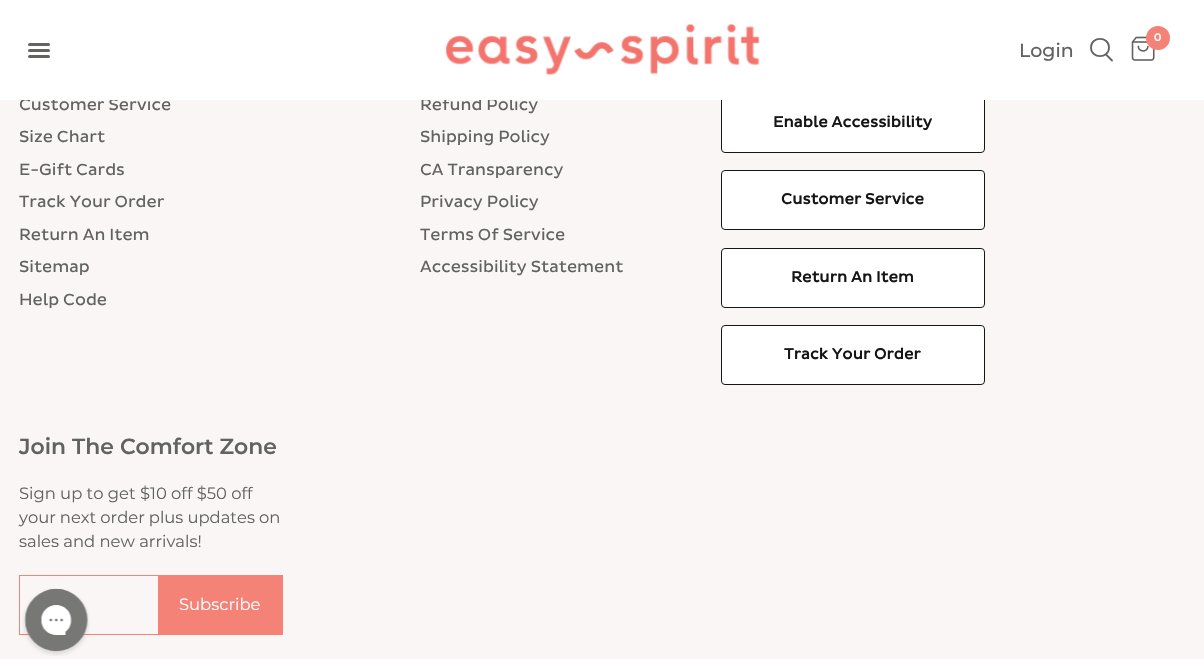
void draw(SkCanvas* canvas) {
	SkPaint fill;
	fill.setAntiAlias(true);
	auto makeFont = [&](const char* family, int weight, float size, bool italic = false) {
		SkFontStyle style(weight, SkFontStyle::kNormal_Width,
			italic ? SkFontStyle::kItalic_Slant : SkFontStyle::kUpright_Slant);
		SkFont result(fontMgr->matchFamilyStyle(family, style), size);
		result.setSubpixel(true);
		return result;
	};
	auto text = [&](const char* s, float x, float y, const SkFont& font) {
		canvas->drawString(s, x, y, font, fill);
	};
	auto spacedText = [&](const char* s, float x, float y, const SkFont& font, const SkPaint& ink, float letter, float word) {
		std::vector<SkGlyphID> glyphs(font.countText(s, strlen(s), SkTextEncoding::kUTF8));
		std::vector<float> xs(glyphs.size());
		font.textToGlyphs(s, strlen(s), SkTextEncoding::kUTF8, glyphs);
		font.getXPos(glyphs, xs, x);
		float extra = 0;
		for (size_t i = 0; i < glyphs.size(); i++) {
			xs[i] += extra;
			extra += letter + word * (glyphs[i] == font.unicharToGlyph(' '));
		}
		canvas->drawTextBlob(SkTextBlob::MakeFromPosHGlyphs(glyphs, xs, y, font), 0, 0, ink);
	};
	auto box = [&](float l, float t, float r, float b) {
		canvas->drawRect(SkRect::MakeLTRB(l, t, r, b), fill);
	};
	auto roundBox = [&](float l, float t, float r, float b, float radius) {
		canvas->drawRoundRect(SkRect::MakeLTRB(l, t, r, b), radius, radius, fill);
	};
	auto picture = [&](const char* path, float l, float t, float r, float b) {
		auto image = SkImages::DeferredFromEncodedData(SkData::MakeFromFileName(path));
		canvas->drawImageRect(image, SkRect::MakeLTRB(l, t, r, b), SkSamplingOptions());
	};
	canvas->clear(0xFFFAF6F6);
	fill.setColor(0xFFFFFFFF);
	canvas->drawRoundRect(SkRect::MakeLTRB(721.5f, 93.5f, 984.5f, 152.5f), 3.5f, 3.5f, fill);
	fill.setStyle(SkPaint::kStroke_Style);
	fill.setStrokeWidth(1);
	fill.setColor(0xFF151515);
	canvas->drawRoundRect(SkRect::MakeLTRB(721.5f, 93.5f, 984.5f, 152.5f), 3.5f, 3.5f, fill);
	fill.setStyle(SkPaint::kFill_Style);
	fill.setColor(0xFFFFFFFF);
	canvas->drawRoundRect(SkRect::MakeLTRB(721.5f, 170.5f, 984.5f, 229.5f), 3.5f, 3.5f, fill);
	fill.setStyle(SkPaint::kStroke_Style);
	fill.setColor(0xFF151515);
	canvas->drawRoundRect(SkRect::MakeLTRB(721.5f, 170.5f, 984.5f, 229.5f), 3.5f, 3.5f, fill);
	fill.setStyle(SkPaint::kFill_Style);
	fill.setColor(0xFFFFFFFF);
	canvas->drawRoundRect(SkRect::MakeLTRB(721.5f, 248.5f, 984.5f, 307.5f), 3.5f, 3.5f, fill);
	fill.setStyle(SkPaint::kStroke_Style);
	fill.setColor(0xFF151515);
	canvas->drawRoundRect(SkRect::MakeLTRB(721.5f, 248.5f, 984.5f, 307.5f), 3.5f, 3.5f, fill);
	fill.setStyle(SkPaint::kFill_Style);
	fill.setColor(0xFFFFFFFF);
	canvas->drawRoundRect(SkRect::MakeLTRB(721.5f, 325.5f, 984.5f, 384.5f), 3.5f, 3.5f, fill);
	fill.setStyle(SkPaint::kStroke_Style);
	fill.setColor(0xFF151515);
	canvas->drawRoundRect(SkRect::MakeLTRB(721.5f, 325.5f, 984.5f, 384.5f), 3.5f, 3.5f, fill);
	fill.setColor(0xFFF48277);
	canvas->drawRect(SkRect::MakeLTRB(19.5f, 575.5f, 282.5f, 634.5f), fill);
	fill.setStyle(SkPaint::kFill_Style);
	box(158, 576, 282, 634);
	picture("image2.png", 22, 588, 90, 656);
	auto font1 = makeFont("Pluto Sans", 400, 16.4f);
	fill.setColor(0xFF626262);
	text("Customer Service", 19, 110, font1);
	text("Size Chart", 19, 142, font1);
	text("E-Gift Cards", 19, 175, font1);
	text("Track Your Order", 19, 207, font1);
	text("Return An Item", 19, 240, font1);
	text("Sitemap", 19, 272, font1);
	text("Help Code", 19, 305, font1);
	text("Refund Policy", 420, 110, font1);
	fill.setColor(0xFFFFFFFF);
	box(0, 0, 1204, 100);
	picture("image1.png", 1131, 36, 1155, 61);
	fill.setColor(0xFFF48277);
	canvas->drawCircle(1158, 38, 12, fill);
	auto font2 = makeFont("Montserrat", 600, 11);
	fill.setColor(0xFFFFFFFF);
	text("0", 1154, 41, font2);
	auto font3 = makeFont("Montserrat", 500, 19);
	fill.setColor(0xFF626262);
	text("Login", 1019, 57, font3);
	picture("image0.png", 446, 24, 760, 75);
	fill.setColor(0xFF636462);
	roundBox(28, 55, 50, 58, 1.5f);
	roundBox(28, 49, 50, 52, 1.5f);
	roundBox(28, 43, 50, 46, 1.5f);
	fill.setStyle(SkPaint::kStroke_Style);
	fill.setStrokeWidth(1.8f);
	fill.setStrokeCap(SkPaint::kRound_Cap);
	fill.setStrokeJoin(SkPaint::kRound_Join);
	canvas->drawPath(SkPathBuilder().moveTo(1106, 54.5f).lineTo(1112, 60.5f).moveTo(1109, 47.5f).cubicTo(1109, 59, 1091, 59, 1091, 47.5f).cubicTo(1091, 36, 1109, 36, 1109, 47.5f).close().detach(), fill);
	fill.setStyle(SkPaint::kFill_Style);
	fill.setColor(0xFF626262);
	text("Shipping Policy", 420, 142, font1);
	text("CA Transparency", 420, 175, font1);
	text("Privacy Policy", 420, 207, font1);
	text("Terms Of Service", 420, 240, font1);
	text("Accessibility Statement", 420, 272, font1);
	auto font4 = makeFont("Pluto Sans", 700, 15.25f);
	fill.setColor(0xFF151515);
	spacedText("Enable Accessibility", 773, 127, font4, fill, 0.1f, 0);
	spacedText("Customer Service", 781, 204, font4, fill, 0.1f, 0);
	spacedText("Return An Item", 791, 282, font4, fill, 0.1f, 0);
	spacedText("Track Your Order", 784, 359, font4, fill, 0.1f, 0);
	auto font5 = makeFont("Montserrat", 600, 21.9f);
	fill.setColor(0xFF626262);
	text("Join The Comfort Zone", 19, 454, font5);
	auto font6 = makeFont("Montserrat", 400, 16.4f);
	text("Sign up to get $10 off $50 off", 19, 499, font6);
	spacedText("your next order plus updates on", 19, 523, font6, fill, 0, -0.25f);
	text("sales and new arrivals!", 19, 547, font6);
	fill.setColor(0xFFFFFFFF);
	text("Subscribe", 179, 610, font6);
}
